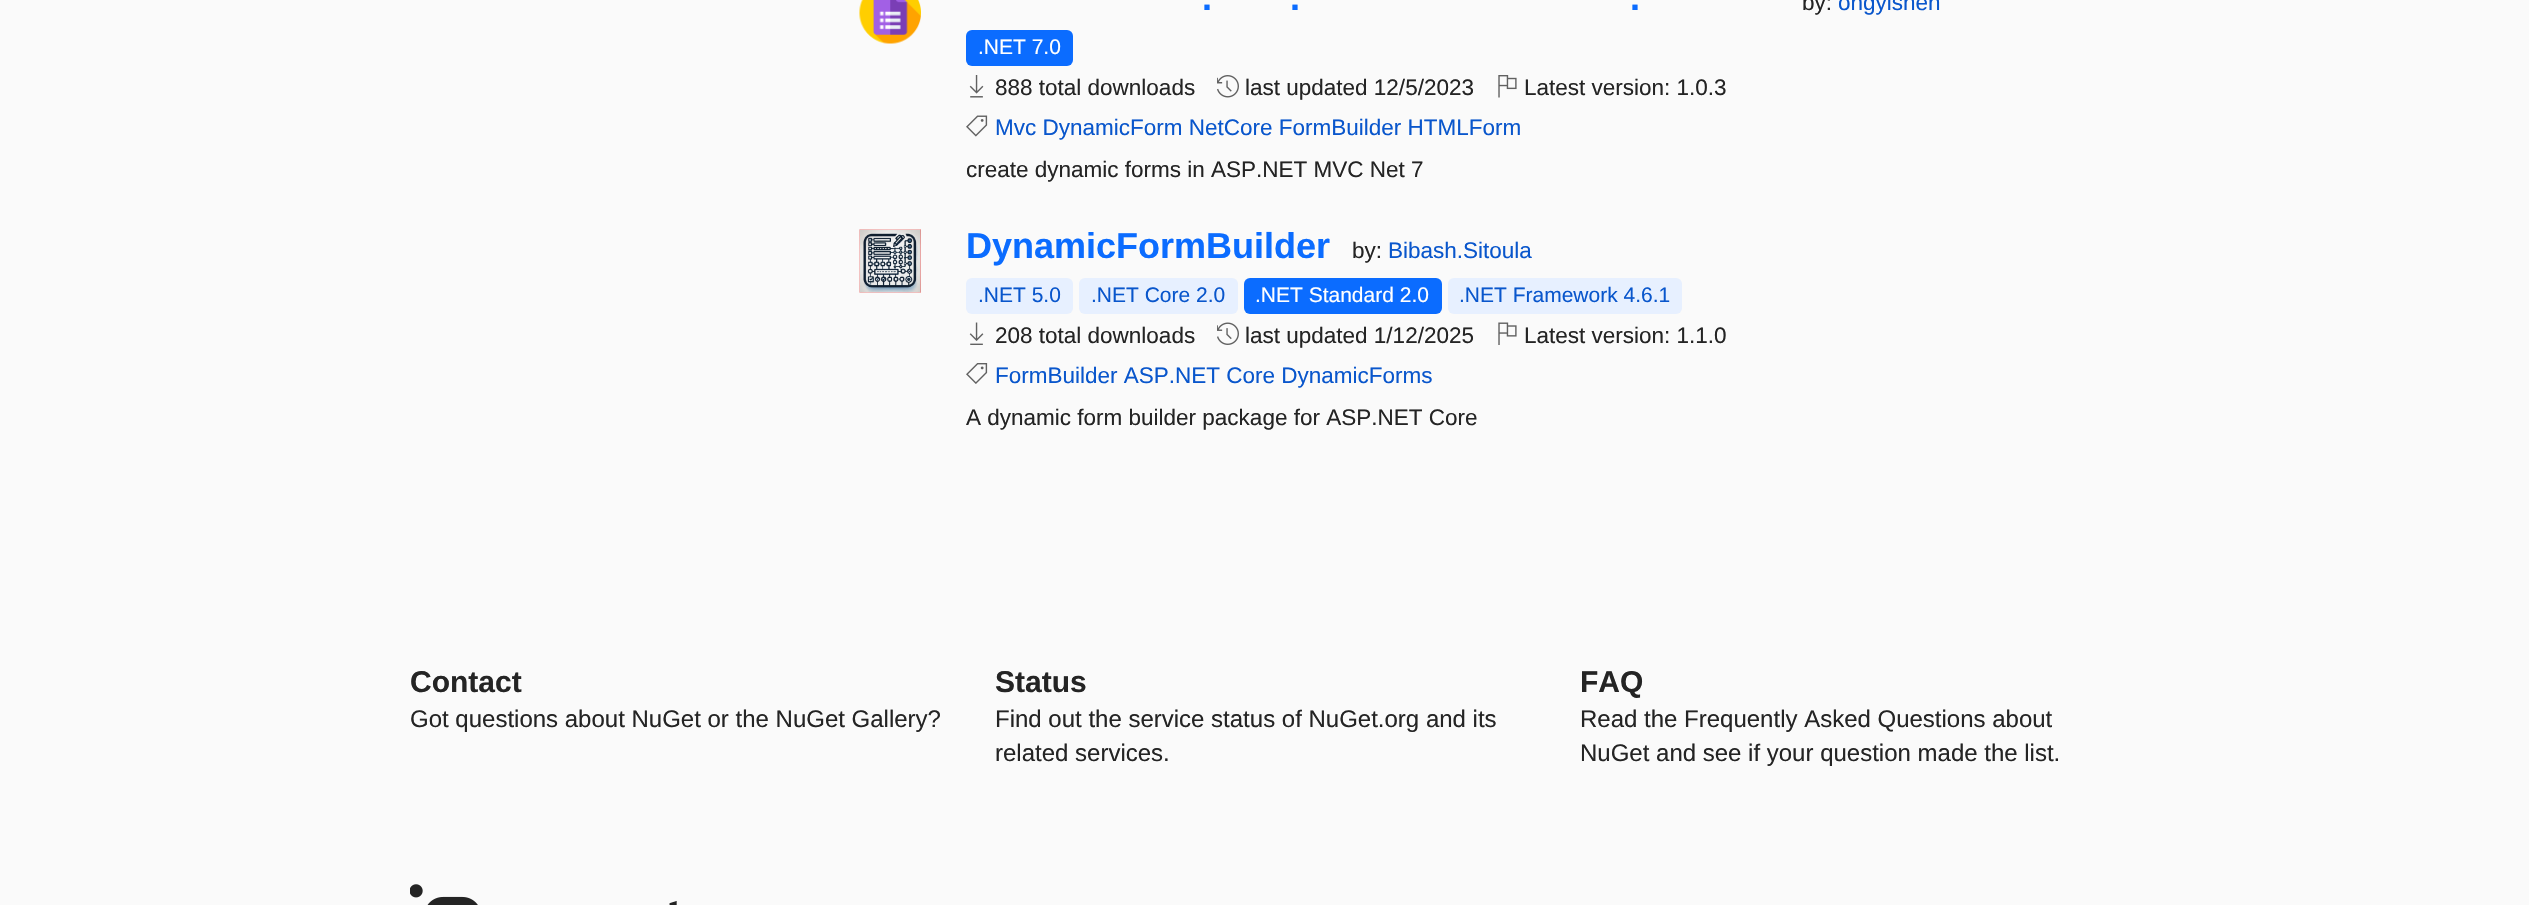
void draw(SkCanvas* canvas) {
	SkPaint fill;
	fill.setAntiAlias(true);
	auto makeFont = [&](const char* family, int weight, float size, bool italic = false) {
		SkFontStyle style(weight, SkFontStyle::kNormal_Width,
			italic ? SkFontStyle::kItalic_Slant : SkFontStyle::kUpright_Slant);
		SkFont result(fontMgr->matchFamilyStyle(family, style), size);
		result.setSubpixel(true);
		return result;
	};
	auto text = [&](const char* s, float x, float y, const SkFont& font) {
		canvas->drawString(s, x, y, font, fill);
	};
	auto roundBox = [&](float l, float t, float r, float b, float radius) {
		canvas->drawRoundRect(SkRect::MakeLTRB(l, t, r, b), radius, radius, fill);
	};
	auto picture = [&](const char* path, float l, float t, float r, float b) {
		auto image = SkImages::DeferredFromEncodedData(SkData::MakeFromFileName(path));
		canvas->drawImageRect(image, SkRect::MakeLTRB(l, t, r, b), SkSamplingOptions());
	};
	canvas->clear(0xFFFAFAFA);
	picture("image0.png", 859, 0, 921, 44);
	fill.setColor(0xFF0B6CFF);
	roundBox(966, 30, 1073, 66, 6);
	picture("image1.png", 969, 75, 984, 98);
	picture("image2.png", 1217, 75, 1239, 98);
	picture("image3.png", 1498, 75, 1517, 98);
	picture("image4.png", 966, 115, 988, 137);
	picture("image5.png", 859, 229, 921, 293);
	fill.setColor(0xFFE7F0FF);
	roundBox(966, 278, 1073, 314, 6);
	roundBox(1079, 278, 1238, 314, 6);
	fill.setColor(0xFF0B6CFF);
	roundBox(1244, 278, 1442, 314, 6);
	fill.setColor(0xFFE7F0FF);
	roundBox(1448, 278, 1682, 314, 6);
	picture("image6.png", 969, 322, 984, 345);
	picture("image7.png", 1217, 322, 1239, 345);
	picture("image8.png", 1498, 322, 1517, 345);
	picture("image9.png", 966, 363, 988, 384);
	picture("image10.png", 410, 884, 677, 905);
	auto font1 = makeFont("Liberation Sans", 700, 36);
	fill.setColor(0xFF0B6CFF);
	text(".", 1202, 10, font1);
	text(".", 1290, 10, font1);
	text(".", 1630, 10, font1);
	auto font2 = makeFont("Liberation Sans", 400, 22.5f);
	fill.setColor(0xFF242424);
	text("by:", 1802, 10, font2);
	fill.setColor(0xFF0956CC);
	text("ongyishen", 1838, 10, font2);
	auto font3 = makeFont("Liberation Sans", 400, 21);
	fill.setColor(0xFFFFFFFF);
	text(".NET 7.0", 978, 54, font3);
	fill.setColor(0xFF242424);
	text("888 total downloads", 995, 95, font2);
	text("last updated 12/5/2023", 1245, 95, font2);
	text("Latest version: 1.0.3", 1524, 95, font2);
	fill.setColor(0xFF0956CC);
	text("Mvc DynamicForm NetCore FormBuilder HTMLForm", 995, 135, font2);
	fill.setColor(0xFF242424);
	text("create dynamic forms in ASP.NET MVC Net 7", 966, 177, font2);
	fill.setColor(0xFF0B6CFF);
	text("DynamicFormBuilder", 966, 258, font1);
	fill.setColor(0xFF242424);
	text("by:", 1352, 258, font2);
	fill.setColor(0xFF0956CC);
	text("Bibash.Sitoula", 1388, 258, font2);
	text(".NET 5.0", 978, 302, font3);
	text(".NET Core 2.0", 1091, 302, font3);
	fill.setColor(0xFFFFFFFF);
	text(".NET Standard 2.0", 1255, 302, font3);
	fill.setColor(0xFF0956CC);
	text(".NET Framework 4.6.1", 1459, 302, font3);
	fill.setColor(0xFF242424);
	text("208 total downloads", 995, 343, font2);
	text("last updated 1/12/2025", 1245, 343, font2);
	text("Latest version: 1.1.0", 1524, 343, font2);
	fill.setColor(0xFF0956CC);
	text("FormBuilder ASP.NET Core DynamicForms", 995, 383, font2);
	fill.setColor(0xFF242424);
	text("A dynamic form builder package for ASP.NET Core", 966, 425, font2);
	auto font4 = makeFont("Liberation Sans", 700, 30);
	text("Contact", 410, 692, font4);
	auto font5 = makeFont("Liberation Sans", 400, 24);
	text("Got questions about NuGet or the NuGet Gallery?", 410, 727, font5);
	text("Status", 995, 692, font4);
	text("Find out the service status of NuGet.org and its", 995, 727, font5);
	text("related services.", 995, 761, font5);
	text("FAQ", 1580, 692, font4);
	text("Read the Frequently Asked Questions about", 1580, 727, font5);
	text("NuGet and see if your question made the list.", 1580, 761, font5);
}
